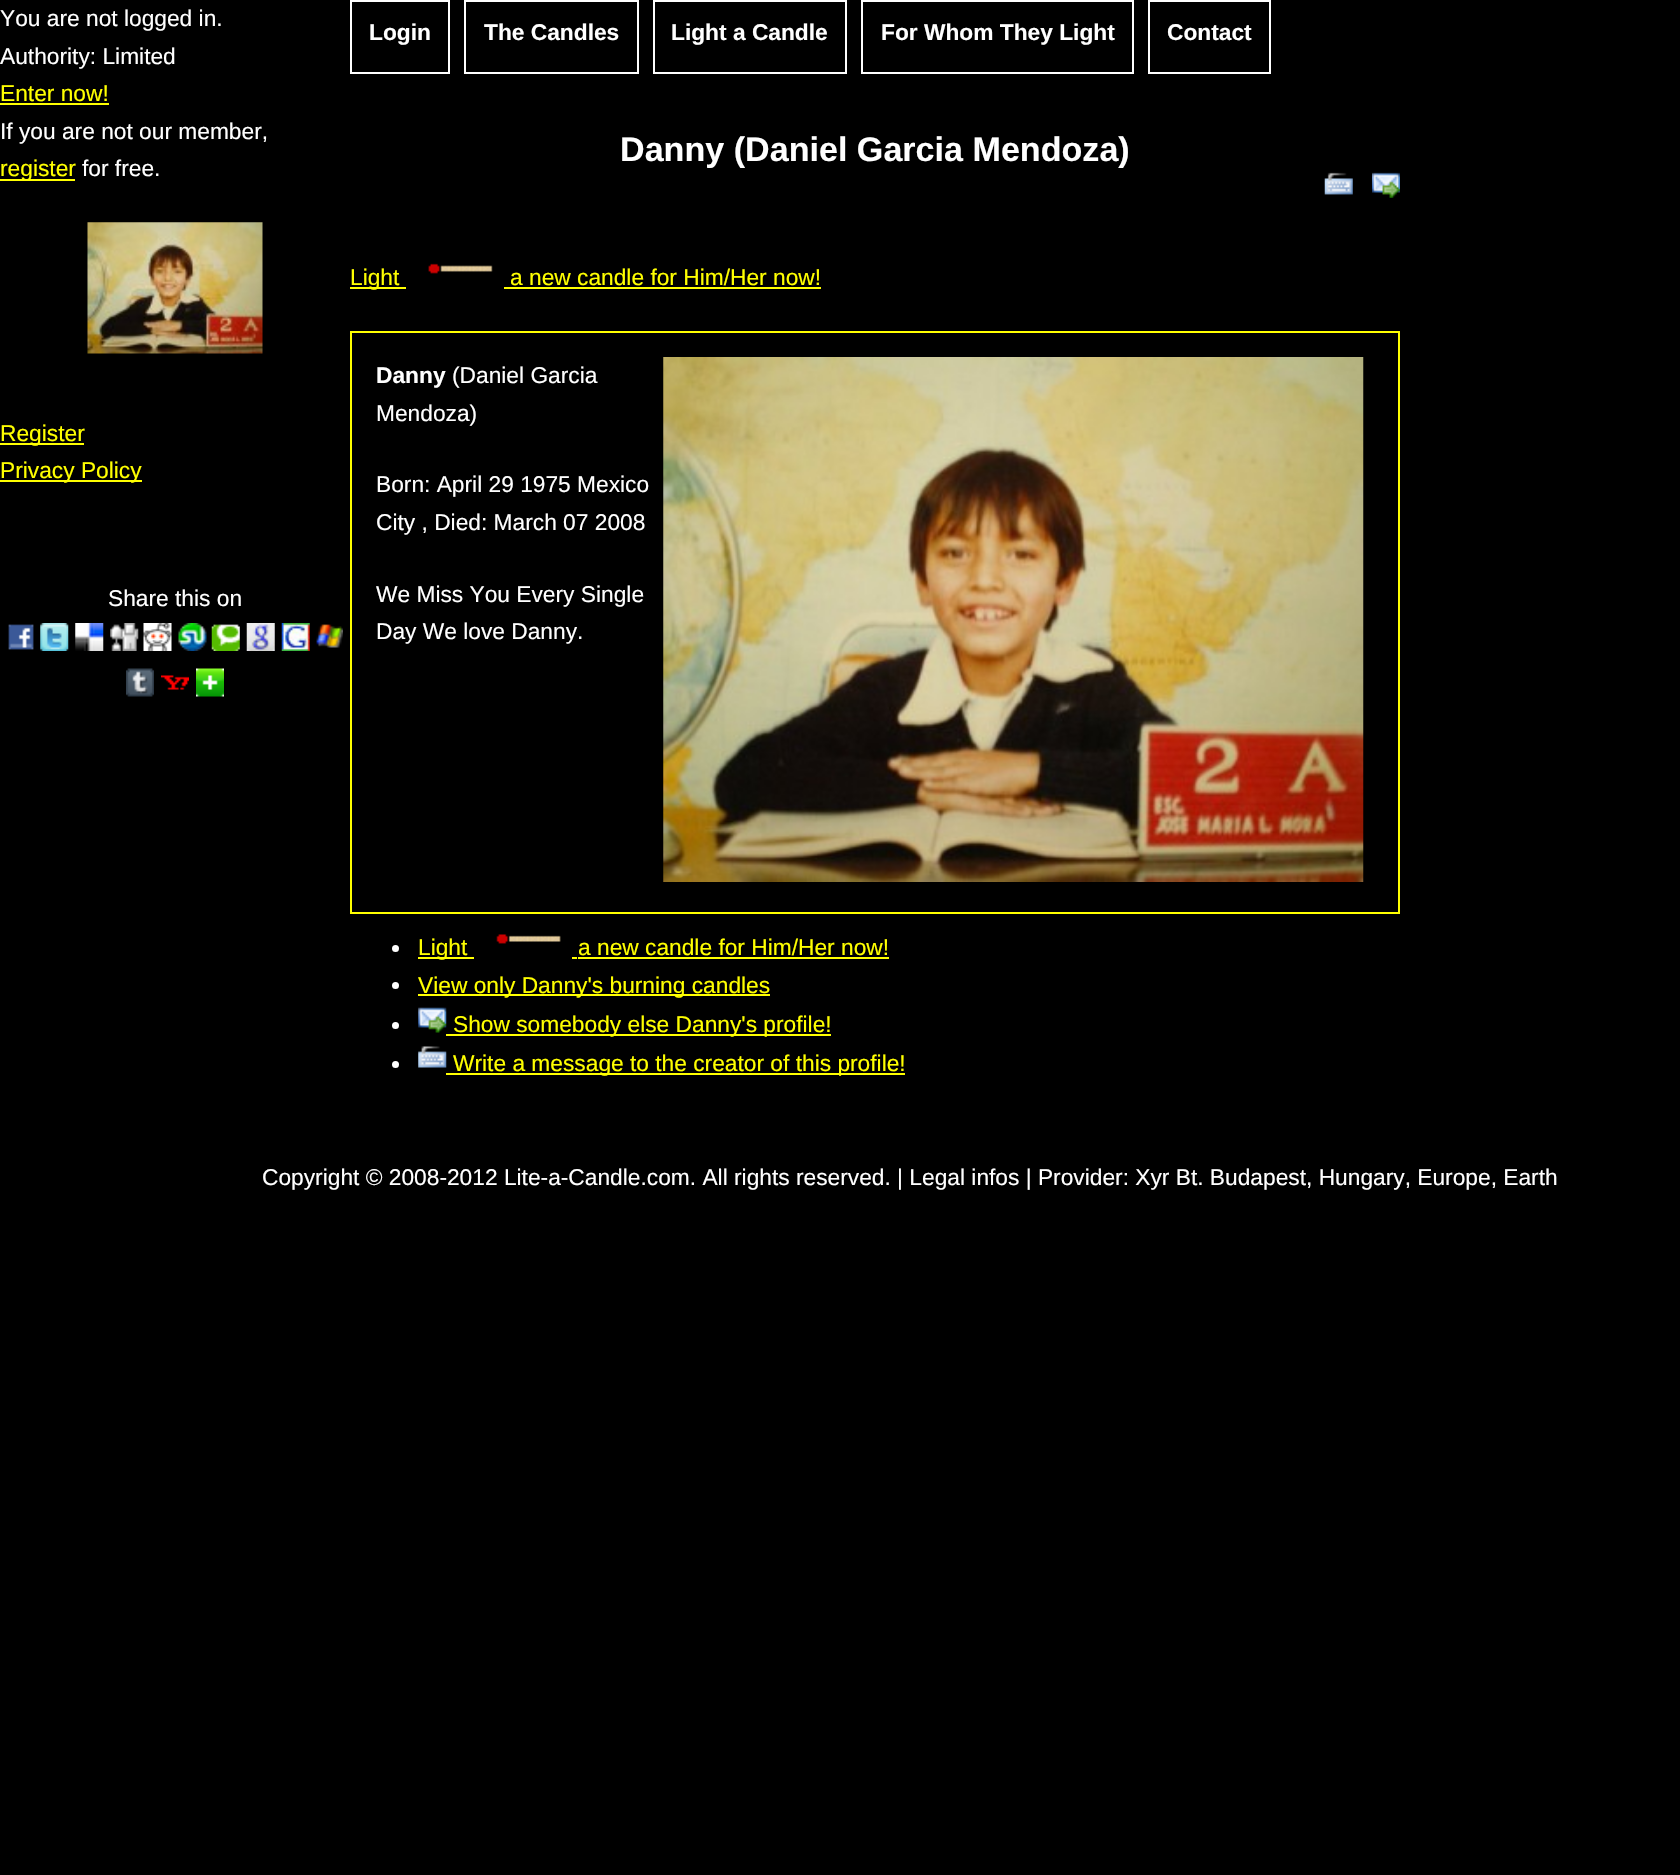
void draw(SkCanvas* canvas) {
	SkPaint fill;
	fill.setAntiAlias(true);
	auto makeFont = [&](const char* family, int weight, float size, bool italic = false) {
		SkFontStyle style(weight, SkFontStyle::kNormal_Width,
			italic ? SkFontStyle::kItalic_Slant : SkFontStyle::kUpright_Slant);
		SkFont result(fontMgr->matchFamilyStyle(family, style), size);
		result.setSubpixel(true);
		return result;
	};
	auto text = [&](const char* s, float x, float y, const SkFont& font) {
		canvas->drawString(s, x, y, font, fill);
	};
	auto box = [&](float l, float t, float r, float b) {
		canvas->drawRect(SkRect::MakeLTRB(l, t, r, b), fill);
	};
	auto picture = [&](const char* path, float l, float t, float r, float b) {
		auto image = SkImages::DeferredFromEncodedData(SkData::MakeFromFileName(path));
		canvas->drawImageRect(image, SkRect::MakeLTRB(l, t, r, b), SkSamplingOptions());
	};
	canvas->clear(0xFF000000);
	fill.setColor(0xFFFFFF00);
	box(0, 103, 109, 105);
	box(0, 179, 75, 181);
	picture("image0.png", 87, 222, 263, 354);
	box(0, 443, 84, 445);
	box(0, 480, 142, 482);
	picture("image1.png", 8, 624, 34, 650);
	picture("image2.png", 40, 623, 69, 651);
	picture("image3.png", 75, 623, 104, 651);
	picture("image4.png", 110, 623, 139, 651);
	picture("image5.png", 143, 623, 172, 651);
	picture("image6.png", 178, 623, 207, 651);
	picture("image7.png", 211, 624, 240, 651);
	picture("image8.png", 246, 623, 275, 651);
	picture("image9.png", 281, 623, 310, 651);
	picture("image10.png", 316, 624, 343, 648);
	picture("image11.png", 126, 668, 154, 697);
	picture("image12.png", 161, 675, 189, 690);
	picture("image13.png", 196, 668, 224, 697);
	fill.setStyle(SkPaint::kStroke_Style);
	fill.setStrokeWidth(2);
	fill.setColor(0xFFFFFFFF);
	canvas->drawRect(SkRect::MakeLTRB(351, 1, 449, 73), fill);
	canvas->drawRect(SkRect::MakeLTRB(465, 1, 638, 73), fill);
	canvas->drawRect(SkRect::MakeLTRB(654, 1, 846, 73), fill);
	canvas->drawRect(SkRect::MakeLTRB(862, 1, 1133, 73), fill);
	canvas->drawRect(SkRect::MakeLTRB(1149, 1, 1270, 73), fill);
	picture("image14.png", 1324, 172, 1353, 195);
	picture("image15.png", 1372, 172, 1400, 198);
	fill.setStyle(SkPaint::kFill_Style);
	fill.setColor(0xFFFFFF00);
	box(350, 287, 406, 289);
	picture("image16.png", 428, 263, 493, 274);
	box(504, 287, 821, 289);
	fill.setStyle(SkPaint::kStroke_Style);
	canvas->drawRect(SkRect::MakeLTRB(351, 332, 1399, 913), fill);
	picture("image17.png", 663, 357, 1364, 882);
	fill.setStyle(SkPaint::kFill_Style);
	fill.setColor(0xFFFFFFFF);
	canvas->drawCircle(395.5f, 948.5f, 3.5f, fill);
	fill.setColor(0xFFFFFF00);
	box(418, 957, 474, 959);
	picture("image18.png", 496, 934, 561, 944);
	box(572, 957, 577, 959);
	box(578, 957, 889, 959);
	fill.setColor(0xFFFFFFFF);
	canvas->drawCircle(395.5f, 985.5f, 3.5f, fill);
	fill.setColor(0xFFFFFF00);
	box(418, 994, 770, 996);
	fill.setColor(0xFFFFFFFF);
	canvas->drawCircle(395.5f, 1025.5f, 3.5f, fill);
	picture("image19.png", 418, 1007, 447, 1033);
	fill.setColor(0xFFFFFF00);
	box(446, 1034, 831, 1036);
	fill.setColor(0xFFFFFFFF);
	canvas->drawCircle(395.5f, 1064.5f, 3.5f, fill);
	picture("image20.png", 418, 1046, 447, 1068);
	fill.setColor(0xFFFFFF00);
	box(446, 1073, 905, 1075);
	auto font1 = makeFont("Liberation Sans", 400, 22.75f);
	fill.setColor(0xFFFFFFFF);
	text("You are not logged in.", 0, 26, font1);
	text("Authority: Limited", 0, 64, font1);
	fill.setColor(0xFFFFFF00);
	text("Enter now!", 0, 101, font1);
	fill.setColor(0xFFFFFFFF);
	text("If you are not our member,", 0, 139, font1);
	fill.setColor(0xFFFFFF00);
	text("register", 0, 176, font1);
	fill.setColor(0xFFFFFFFF);
	text("for free.", 82, 176, font1);
	fill.setColor(0xFFFFFF00);
	text("Register", 0, 441, font1);
	text("Privacy Policy", 0, 478, font1);
	fill.setColor(0xFFFFFFFF);
	text("Share this on", 108, 606, font1);
	auto font2 = makeFont("Liberation Sans", 700, 22.75f);
	text("Login", 369, 40, font2);
	text("The Candles", 484, 40, font2);
	text("Light a Candle", 671, 40, font2);
	text("For Whom They Light", 881, 40, font2);
	text("Contact", 1167, 40, font2);
	auto font3 = makeFont("Liberation Sans", 700, 34.1f);
	text("Danny (Daniel Garcia Mendoza)", 620, 161, font3);
	fill.setColor(0xFFFFFF00);
	text("Light", 350, 285, font1);
	text("a new candle for Him/Her now!", 510, 285, font1);
	fill.setColor(0xFFFFFFFF);
	text("Danny", 376, 383, font2);
	text("(Daniel Garcia", 452, 383, font1);
	text("Mendoza)", 376, 421, font1);
	text("Born: April 29 1975 Mexico", 376, 492, font1);
	text("City , Died: March 07 2008", 376, 530, font1);
	text("We Miss You Every Single", 376, 602, font1);
	text("Day We love Danny.", 376, 639, font1);
	fill.setColor(0xFFFFFF00);
	text("Light", 418, 955, font1);
	text("a new candle for Him/Her now!", 578, 955, font1);
	text("View only Danny's burning candles", 418, 993, font1);
	text("Show somebody else Danny's profile!", 453, 1032, font1);
	text("Write a message to the creator of this profile!", 453, 1071, font1);
	fill.setColor(0xFFFFFFFF);
	text("Copyright © 2008-2012 Lite-a-Candle.com. All rights reserved. | Legal infos | Provider: Xyr Bt. Budapest, Hungary, Europe, Earth", 262, 1185, font1);
}
